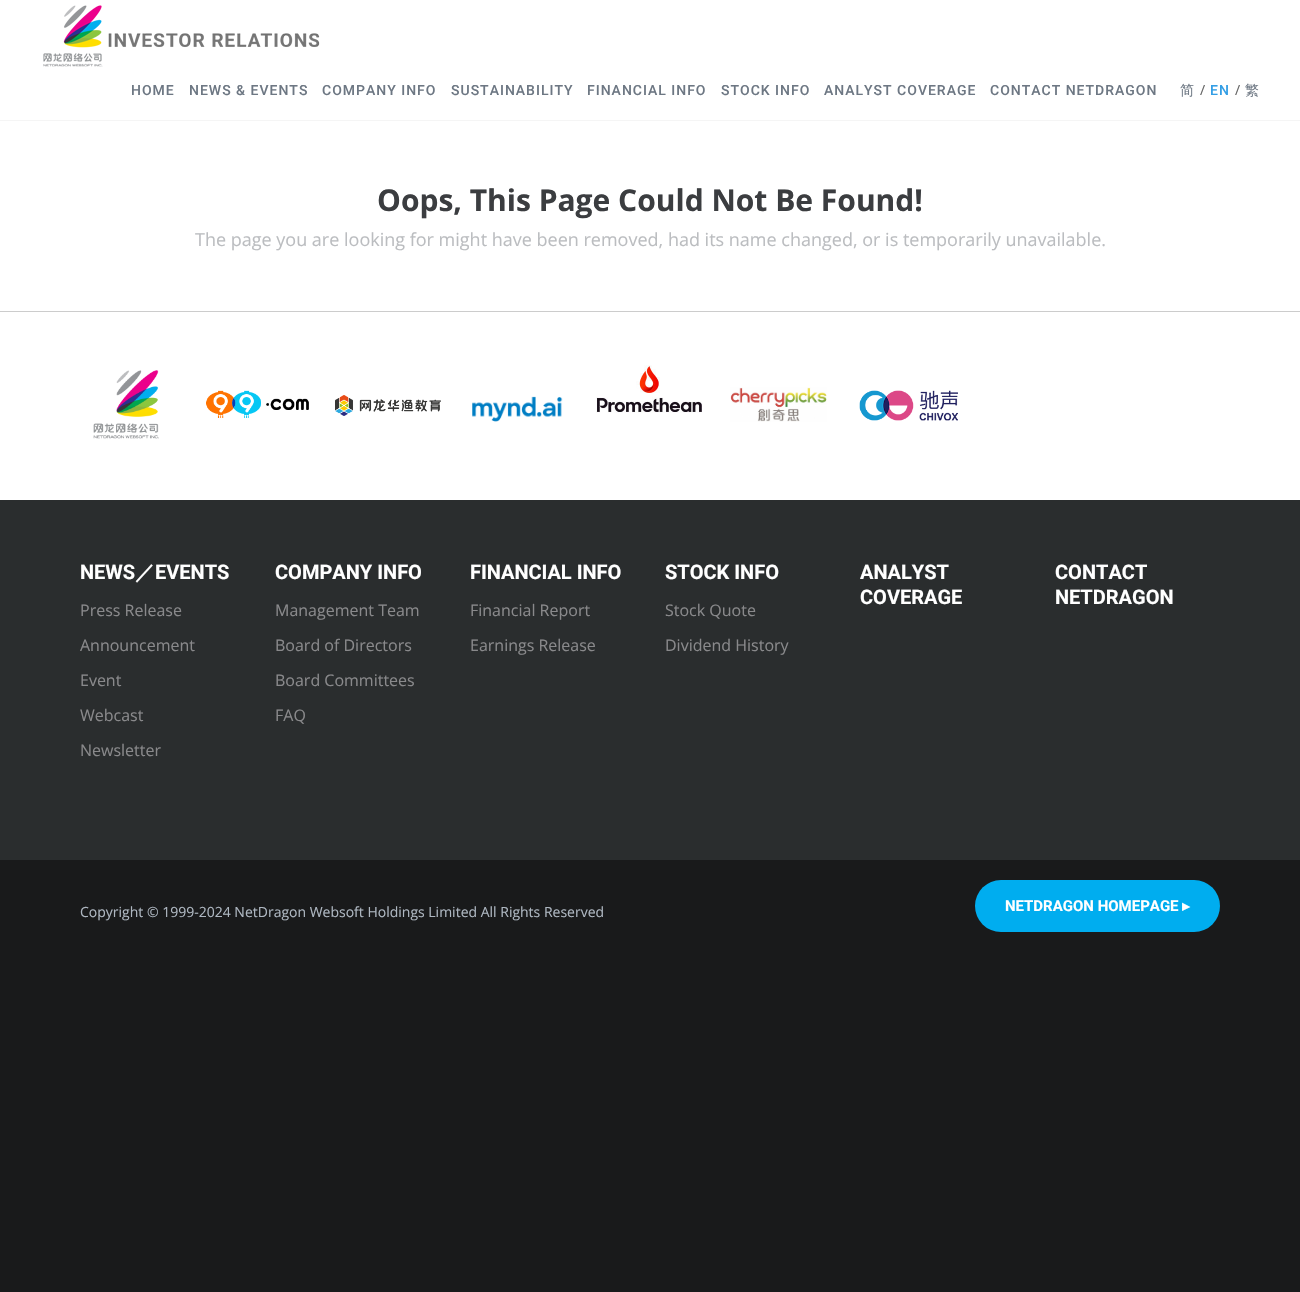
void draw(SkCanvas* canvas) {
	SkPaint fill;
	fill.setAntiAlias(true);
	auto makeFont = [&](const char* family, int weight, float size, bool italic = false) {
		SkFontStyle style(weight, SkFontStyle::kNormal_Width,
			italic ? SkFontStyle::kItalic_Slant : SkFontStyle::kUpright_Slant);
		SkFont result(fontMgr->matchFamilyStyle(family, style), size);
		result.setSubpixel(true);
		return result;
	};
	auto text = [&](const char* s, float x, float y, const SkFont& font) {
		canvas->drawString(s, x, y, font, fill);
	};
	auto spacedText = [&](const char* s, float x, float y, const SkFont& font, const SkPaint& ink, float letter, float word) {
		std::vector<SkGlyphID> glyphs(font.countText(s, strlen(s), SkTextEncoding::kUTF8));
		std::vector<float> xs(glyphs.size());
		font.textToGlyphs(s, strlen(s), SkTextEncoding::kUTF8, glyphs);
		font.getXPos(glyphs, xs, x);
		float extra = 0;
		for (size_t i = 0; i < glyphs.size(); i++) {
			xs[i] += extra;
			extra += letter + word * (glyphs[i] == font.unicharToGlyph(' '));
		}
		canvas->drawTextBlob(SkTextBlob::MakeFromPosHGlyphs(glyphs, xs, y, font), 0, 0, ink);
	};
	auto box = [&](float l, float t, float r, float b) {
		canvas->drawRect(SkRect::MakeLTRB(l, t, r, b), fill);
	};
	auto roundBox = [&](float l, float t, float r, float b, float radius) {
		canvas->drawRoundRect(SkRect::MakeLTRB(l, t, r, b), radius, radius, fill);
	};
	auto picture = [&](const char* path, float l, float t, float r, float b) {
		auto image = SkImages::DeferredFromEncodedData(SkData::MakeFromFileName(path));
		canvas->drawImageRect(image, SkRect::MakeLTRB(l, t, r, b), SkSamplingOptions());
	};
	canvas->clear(0xFF191A1B);
	fill.setColor(0xFFFFFFFF);
	box(0, 0, 1300, 120);
	fill.setColor(0xFFF5F5F5);
	box(0, 120, 1300, 121);
	picture("image0.png", 43, 5, 320, 67);
	fill.setColor(0xFFFFFFFF);
	box(0, 121, 1300, 500);
	fill.setColor(0xFFCCCCCC);
	box(0, 311, 1300, 312);
	picture("image1.png", 93, 370, 159, 439);
	picture("image2.png", 206, 390, 309, 418);
	picture("image3.png", 335, 395, 441, 416);
	picture("image4.png", 472, 396, 563, 422);
	picture("image5.png", 596, 365, 702, 413);
	picture("image6.png", 730, 387, 827, 422);
	picture("image7.png", 859, 390, 958, 421);
	fill.setColor(0xFF2A2D2E);
	box(0, 500, 1300, 860);
	fill.setColor(0xFF00ADEF);
	roundBox(975, 880, 1220, 932, 26);
	auto font1 = makeFont("Roboto", 500, 14);
	fill.setColor(0xFF6D7783);
	spacedText("HOME", 131, 95, font1, fill, 1, 0);
	spacedText("NEWS & EVENTS", 189, 95, font1, fill, 1, 0);
	spacedText("COMPANY INFO", 322, 95, font1, fill, 1, 0);
	spacedText("SUSTAINABILITY", 451, 95, font1, fill, 1, 0);
	spacedText("FINANCIAL INFO", 587, 95, font1, fill, 1, 0);
	spacedText("STOCK INFO", 721, 95, font1, fill, 1, 0);
	spacedText("ANALYST COVERAGE", 824, 95, font1, fill, 1, 0);
	spacedText("CONTACT NETDRAGON", 990, 95, font1, fill, 1, 0);
	auto font2 = makeFont("WenQuanYi Zen Hei", 500, 14);
	spacedText("简", 1180, 95, font2, fill, 1, 0);
	auto font3 = makeFont("Open Sans", 400, 14);
	fill.setColor(0xFF666666);
	text("/", 1200, 95, font3);
	fill.setColor(0xFF339EE5);
	spacedText("EN", 1210, 95, font1, fill, 1, 0);
	fill.setColor(0xFF666666);
	text("/", 1235, 95, font3);
	fill.setColor(0xFF6D7783);
	spacedText("繁", 1245, 95, font2, fill, 1, 0);
	auto font4 = makeFont("Open Sans", 700, 30);
	fill.setColor(0xFF3B3D40);
	text("Oops, This Page Could Not Be Found!", 377, 211, font4);
	auto font5 = makeFont("Open Sans", 400, 18);
	fill.setColor(0xFFBBBDC0);
	text("The page you are looking for might have been removed, had its name changed, or is temporarily unavailable.", 195, 246, font5);
	auto font6 = makeFont("Roboto", 700, 20);
	fill.setColor(0xFFFFFFFF);
	text("NEWS", 80, 579, font6);
	auto font7 = makeFont("WenQuanYi Zen Hei", 700, 20);
	text("／", 135, 579, font7);
	text("EVENTS", 155, 579, font6);
	auto font8 = makeFont("Open Sans", 400, 16);
	fill.setColor(0xFF89898B);
	text("Press Release", 80, 616, font8);
	text("Announcement", 80, 651, font8);
	text("Event", 80, 686, font8);
	text("Webcast", 80, 721, font8);
	text("Newsletter", 80, 756, font8);
	fill.setColor(0xFFFFFFFF);
	text("COMPANY INFO", 275, 579, font6);
	fill.setColor(0xFF89898B);
	text("Management Team", 275, 616, font8);
	text("Board of Directors", 275, 651, font8);
	text("Board Committees", 275, 686, font8);
	text("FAQ", 275, 721, font8);
	fill.setColor(0xFFFFFFFF);
	text("FINANCIAL INFO", 470, 579, font6);
	fill.setColor(0xFF89898B);
	text("Financial Report", 470, 616, font8);
	text("Earnings Release", 470, 651, font8);
	fill.setColor(0xFFFFFFFF);
	text("STOCK INFO", 665, 579, font6);
	fill.setColor(0xFF89898B);
	text("Stock Quote", 665, 616, font8);
	text("Dividend History", 665, 651, font8);
	fill.setColor(0xFFFFFFFF);
	text("ANALYST", 860, 579, font6);
	text("COVERAGE", 860, 604, font6);
	text("CONTACT", 1055, 579, font6);
	text("NETDRAGON", 1055, 604, font6);
	fill.setColor(0xFFAEB7C1);
	text("Copyright © 1999-2024 NetDragon Websoft Holdings Limited All Rights Reserved", 80, 917, font3);
	auto font9 = makeFont("Roboto", 700, 15);
	fill.setColor(0xFFFFFFFF);
	text("NETDRAGON HOMEPAGE", 1005, 911, font9);
	auto font10 = makeFont("DejaVu Sans", 700, 15);
	text("▸", 1182, 911, font10);
}
